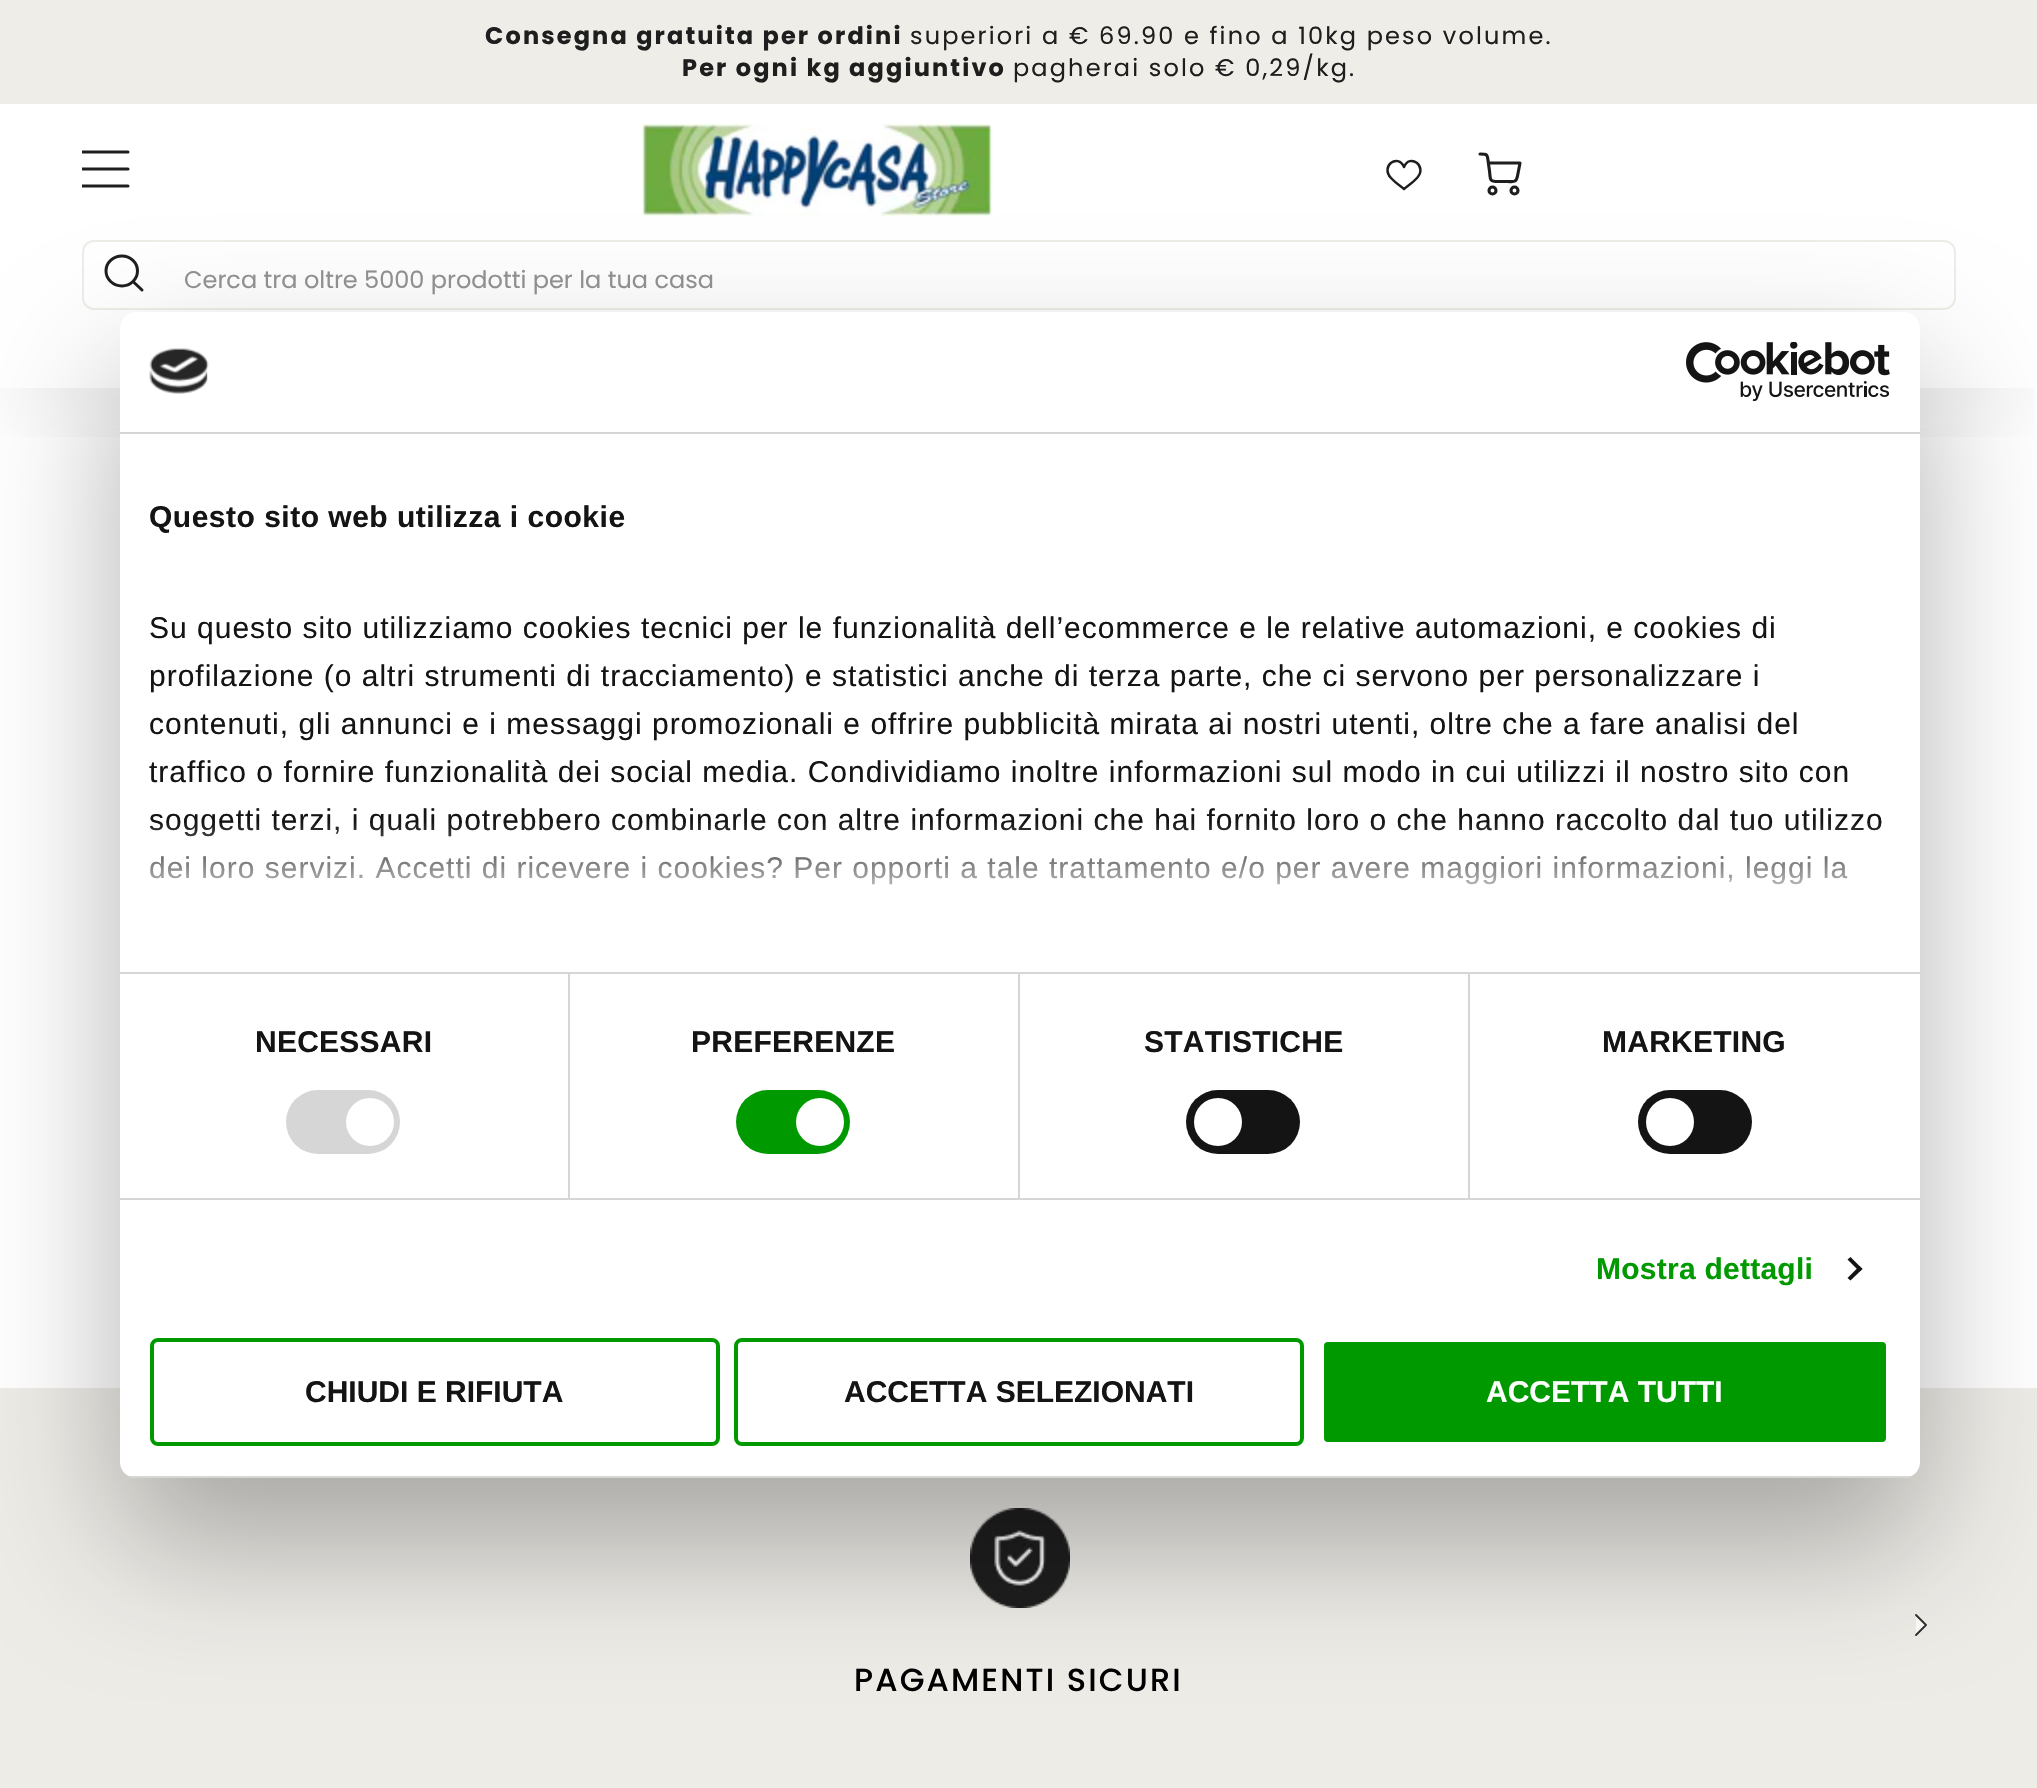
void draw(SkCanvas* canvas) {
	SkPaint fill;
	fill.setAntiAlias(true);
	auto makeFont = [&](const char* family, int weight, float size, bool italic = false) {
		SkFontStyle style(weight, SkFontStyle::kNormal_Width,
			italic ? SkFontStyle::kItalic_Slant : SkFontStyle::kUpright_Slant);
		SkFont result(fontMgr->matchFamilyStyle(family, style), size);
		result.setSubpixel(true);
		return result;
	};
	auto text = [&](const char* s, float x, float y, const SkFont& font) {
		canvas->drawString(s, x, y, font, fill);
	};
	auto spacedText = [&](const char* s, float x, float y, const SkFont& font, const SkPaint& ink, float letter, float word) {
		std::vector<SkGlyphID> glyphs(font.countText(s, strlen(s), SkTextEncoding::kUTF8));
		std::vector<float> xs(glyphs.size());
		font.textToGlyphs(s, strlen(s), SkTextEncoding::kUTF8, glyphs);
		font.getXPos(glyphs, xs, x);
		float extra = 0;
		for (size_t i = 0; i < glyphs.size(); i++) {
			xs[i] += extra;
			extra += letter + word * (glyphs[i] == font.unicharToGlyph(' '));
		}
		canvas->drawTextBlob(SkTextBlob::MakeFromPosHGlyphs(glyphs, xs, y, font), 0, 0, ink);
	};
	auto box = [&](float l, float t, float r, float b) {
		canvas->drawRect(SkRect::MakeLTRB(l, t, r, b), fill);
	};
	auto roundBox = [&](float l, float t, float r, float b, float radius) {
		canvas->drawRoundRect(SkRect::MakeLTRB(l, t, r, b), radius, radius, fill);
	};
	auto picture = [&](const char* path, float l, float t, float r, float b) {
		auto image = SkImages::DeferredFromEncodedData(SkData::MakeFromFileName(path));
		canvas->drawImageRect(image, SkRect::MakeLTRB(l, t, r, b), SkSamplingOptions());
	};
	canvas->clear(0xFFFFFFFF);
	fill.setColor(0xFFEFEDE7);
	box(0, 0, 2037, 104);
	canvas->save();
	canvas->clipRect(SkRect::MakeLTRB(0, 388, 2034, 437));
	fill.setColor(0x1A292929);
	fill.setMaskFilter(SkMaskFilter::MakeBlur(kNormal_SkBlurStyle, 50));
	canvas->drawRect(SkRect::MakeLTRB(18, 152, 2016, 396), fill);
	fill.setMaskFilter(nullptr);
	canvas->restore();
	canvas->save();
	canvas->clipRect(SkRect::MakeLTRB(82, 146, 130, 194));
	fill.setStyle(SkPaint::kStroke_Style);
	fill.setStrokeWidth(3);
	fill.setStrokeCap(SkPaint::kRound_Cap);
	fill.setStrokeJoin(SkPaint::kRound_Join);
	fill.setColor(0xFF1E1E1E);
	canvas->drawPath(SkPathBuilder().moveTo(82, 152).lineTo(128, 152).moveTo(82, 169).lineTo(128, 169).moveTo(82, 186).lineTo(128, 186).detach(), fill);
	canvas->restore();
	picture("image0.png", 642, 124, 993, 216);
	fill.setStrokeWidth(2.5f);
	canvas->drawPath(SkPathBuilder().moveTo(1417, 178).cubicTo(1428, 166, 1409.5f, 153, 1404, 167).cubicTo(1398, 153, 1380, 166, 1391, 178).cubicTo(1397, 184.5f, 1401.5f, 186.5f, 1404, 189).cubicTo(1406.5f, 186.5f, 1411, 184.5f, 1417, 178).close().detach(), fill);
	fill.setStrokeWidth(3.1f);
	canvas->drawPath(SkPathBuilder().moveTo(1488.5f, 163).lineTo(1520, 163).lineTo(1517.5f, 176).cubicTo(1516, 183, 1514, 181.5f, 1507, 181.5f).lineTo(1497.5f, 181.5f).cubicTo(1489, 181.5f, 1490.5f, 179, 1489.5f, 171).lineTo(1488, 160.5f).cubicTo(1487.5f, 154, 1486.5f, 154, 1480, 154).detach(), fill);
	fill.setStrokeCap(SkPaint::kButt_Cap);
	fill.setStrokeJoin(SkPaint::kMiter_Join);
	canvas->drawCircle(1492.5f, 190.5f, 3.5f, fill);
	canvas->drawCircle(1514.5f, 190.5f, 3.5f, fill);
	fill.setStrokeWidth(2);
	fill.setColor(0xFFEFEDE7);
	canvas->drawRoundRect(SkRect::MakeLTRB(83, 241, 1955, 309), 11, 11, fill);
	fill.setStrokeWidth(3);
	fill.setStrokeCap(SkPaint::kRound_Cap);
	fill.setStrokeJoin(SkPaint::kRound_Join);
	fill.setColor(0xFF1E1E1E);
	canvas->drawPath(SkPathBuilder().moveTo(133, 281.5f).lineTo(142, 290).moveTo(137.5f, 271).cubicTo(137.5f, 279, 130.5f, 286, 122, 286).cubicTo(113, 286, 106, 279, 106, 271).cubicTo(106, 262.5f, 113, 256, 122, 256).cubicTo(130.5f, 256, 137.5f, 262.5f, 137.5f, 271).close().detach(), fill);
	fill.setStyle(SkPaint::kFill_Style);
	fill.setColor(0xFFEEECE7);
	box(0, 1388, 2037, 1788);
	fill.setColor(0xFFFCFBFA);
	canvas->drawPath(SkPathBuilder().moveTo(1916, 1615).lineTo(1926, 1625).lineTo(1916, 1635).detach(), fill);
	fill.setStyle(SkPaint::kStroke_Style);
	fill.setStrokeWidth(1.9f);
	fill.setColor(0xFF302F2E);
	canvas->drawPath(SkPathBuilder().moveTo(1916, 1615).lineTo(1926, 1625).lineTo(1916, 1635).detach(), fill);
	picture("image3.png", 970, 1508, 1070, 1608);
	fill.setStyle(SkPaint::kFill_Style);
	fill.setColor(0x4D000000);
	fill.setMaskFilter(SkMaskFilter::MakeBlur(kNormal_SkBlurStyle, 68));
	canvas->drawRoundRect(SkRect::MakeLTRB(120, 376, 1920, 1542), 16, 16, fill);
	fill.setMaskFilter(nullptr);
	fill.setColor(0xFFFFFFFF);
	roundBox(120, 312, 1920, 1478, 16);
	fill.setColor(0xFFD6D6D6);
	box(120, 432, 1920, 434);
	picture("image1.png", 149, 348, 209, 394);
	picture("image2.png", 1686, 342, 1890, 402);
	box(120, 972, 1920, 974);
	box(120, 1198, 1920, 1200);
	box(568, 974, 570, 1198);
	roundBox(286, 1090, 400, 1154, 32);
	fill.setColor(0xFFFFFFFF);
	canvas->drawCircle(370, 1122, 24, fill);
	fill.setColor(0xFFD6D6D6);
	box(1018, 974, 1020, 1198);
	fill.setColor(0xFF009900);
	roundBox(736, 1090, 850, 1154, 32);
	fill.setColor(0xFFFFFFFF);
	canvas->drawCircle(820, 1122, 24, fill);
	fill.setColor(0xFFD6D6D6);
	box(1468, 974, 1470, 1198);
	fill.setColor(0xFF141414);
	roundBox(1186, 1090, 1300, 1154, 32);
	fill.setColor(0xFFFFFFFF);
	canvas->drawCircle(1218, 1122, 24, fill);
	fill.setColor(0xFF141414);
	roundBox(1638, 1090, 1752, 1154, 32);
	fill.setColor(0xFFFFFFFF);
	canvas->drawCircle(1670, 1122, 24, fill);
	fill.setColor(0xFF141414);
	canvas->drawPath(SkPathBuilder().moveTo(1850.5f, 1257).lineTo(1862.5f, 1269).lineTo(1859.5f, 1271.5f).lineTo(1847.5f, 1259.5f).close().detach(), fill);
	canvas->drawPath(SkPathBuilder().moveTo(1859.5f, 1266).lineTo(1862.5f, 1269).lineTo(1850.5f, 1280.5f).lineTo(1847.5f, 1278).close().detach(), fill);
	canvas->save();
	canvas->clipPath(SkPathBuilder().moveTo(136, 312).lineTo(1904, 312).cubicTo(1913, 312, 1920, 319, 1920, 328).lineTo(1920, 1462).cubicTo(1920, 1471, 1913, 1478, 1904, 1478).lineTo(136, 1478).cubicTo(127, 1478, 120, 1471, 120, 1462).lineTo(120, 328).cubicTo(120, 319, 127, 312, 136, 312).close().detach(), true);
	fill.setColor(0xFFD6D6D6);
	box(120, 1476, 1920, 1478);
	canvas->restore();
	fill.setStyle(SkPaint::kStroke_Style);
	fill.setStrokeWidth(4);
	fill.setStrokeCap(SkPaint::kButt_Cap);
	fill.setStrokeJoin(SkPaint::kMiter_Join);
	fill.setColor(0xFF009900);
	canvas->drawRoundRect(SkRect::MakeLTRB(152, 1340, 718, 1444), 6, 6, fill);
	canvas->drawRoundRect(SkRect::MakeLTRB(736, 1340, 1302, 1444), 6, 6, fill);
	fill.setStyle(SkPaint::kFill_Style);
	canvas->drawRoundRect(SkRect::MakeLTRB(1322, 1340, 1888, 1444), 6, 6, fill);
	fill.setStyle(SkPaint::kStroke_Style);
	fill.setColor(0xFFFFFFFF);
	canvas->drawRoundRect(SkRect::MakeLTRB(1322, 1340, 1888, 1444), 6, 6, fill);
	auto font1 = makeFont("Poppins", 700, 24);
	fill.setStyle(SkPaint::kFill_Style);
	fill.setColor(0xFF1E1E1E);
	spacedText("Consegna gratuita per ordini", 485, 44, font1, fill, 2.15f, 0);
	auto font2 = makeFont("Poppins", 400, 24);
	spacedText("superiori a € 69.90 e fino a 10kg peso volume.", 910, 44, font2, fill, 2.15f, 0);
	spacedText("Per ogni kg aggiuntivo", 682, 76, font1, fill, 2.15f, 0);
	spacedText("pagherai solo € 0,29/kg.", 1013, 76, font2, fill, 2.15f, 0);
	fill.setColor(0xFF8F8F8F);
	text("Cerca tra oltre 5000 prodotti per la tua casa", 184, 288, font2);
	auto font3 = makeFont("Liberation Sans", 700, 30);
	fill.setColor(0xFF141414);
	spacedText("Questo sito web utilizza i cookie", 149, 527, font3, fill, 0.5f, 0);
	auto font4 = makeFont("Liberation Sans", 400, 30);
	spacedText("Su questo sito utilizziamo cookies tecnici per le funzionalità dell’ecommerce e le relative automazioni, e cookies di", 149, 638, font4, fill, 1, 0);
	spacedText("profilazione (o altri strumenti di tracciamento) e statistici anche di terza parte, che ci servono per personalizzare i", 149, 686, font4, fill, 1, 0);
	spacedText("contenuti, gli annunci e i messaggi promozionali e offrire pubblicità mirata ai nostri utenti, oltre che a fare analisi del", 149, 734, font4, fill, 1, 0);
	spacedText("traffico o fornire funzionalità dei social media. Condividiamo inoltre informazioni sul modo in cui utilizzi il nostro sito con", 149, 782, font4, fill, 1, 0);
	spacedText("soggetti terzi, i quali potrebbero combinarle con altre informazioni che hai fornito loro o che hanno raccolto dal tuo utilizzo", 149, 830, font4, fill, 1, 0);
	spacedText("dei loro servizi. Accetti di ricevere i cookies? Per opporti a tale trattamento e/o per avere maggiori informazioni, leggi la", 149, 878, font4, fill, 1, 0);
	{
		const SkColor colors[] = {0xFFFFFFFF, 0xCCFFFFFF, 0x00FFFFFF};
		const float stops[] = {0, 0.5f, 1};
		const SkPoint ends[] = {{1007, 971}, {1007, 821}};
		fill.setShader(SkGradientShader::MakeLinear(ends, colors, stops, 3, SkTileMode::kClamp));
		fill.setAlpha(255);
	}
	box(150, 823, 1881, 885);
	fill.setShader(nullptr);
	fill.setColor(0xFF141414);
	spacedText("NECESSARI", 255, 1052, font3, fill, 0.25f, 0);
	spacedText("PREFERENZE", 691, 1052, font3, fill, 0.25f, 0);
	spacedText("STATISTICHE", 1144, 1052, font3, fill, 0.25f, 0);
	spacedText("MARKETING", 1602, 1052, font3, fill, 0.25f, 0);
	fill.setColor(0xFF009900);
	spacedText("Mostra dettagli", 1596, 1279, font3, fill, 0.25f, 0);
	fill.setColor(0xFF141414);
	text("CHIUDI E RIFIUTA", 305, 1402, font3);
	text("ACCETTA SELEZIONATI", 844, 1402, font3);
	fill.setColor(0xFFFFFFFF);
	text("ACCETTA TUTTI", 1486, 1402, font3);
	auto font5 = makeFont("Poppins", 500, 32);
	fill.setColor(0xFF000000);
	spacedText("PAGAMENTI SICURI", 854, 1691, font5, fill, 2.15f, 0);
}
